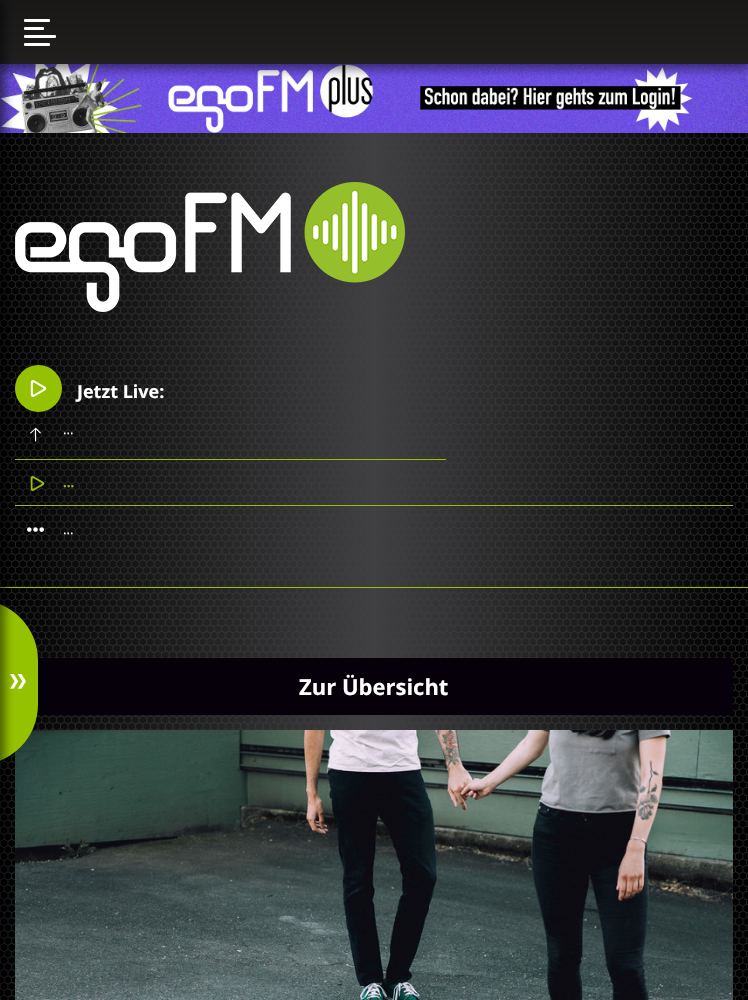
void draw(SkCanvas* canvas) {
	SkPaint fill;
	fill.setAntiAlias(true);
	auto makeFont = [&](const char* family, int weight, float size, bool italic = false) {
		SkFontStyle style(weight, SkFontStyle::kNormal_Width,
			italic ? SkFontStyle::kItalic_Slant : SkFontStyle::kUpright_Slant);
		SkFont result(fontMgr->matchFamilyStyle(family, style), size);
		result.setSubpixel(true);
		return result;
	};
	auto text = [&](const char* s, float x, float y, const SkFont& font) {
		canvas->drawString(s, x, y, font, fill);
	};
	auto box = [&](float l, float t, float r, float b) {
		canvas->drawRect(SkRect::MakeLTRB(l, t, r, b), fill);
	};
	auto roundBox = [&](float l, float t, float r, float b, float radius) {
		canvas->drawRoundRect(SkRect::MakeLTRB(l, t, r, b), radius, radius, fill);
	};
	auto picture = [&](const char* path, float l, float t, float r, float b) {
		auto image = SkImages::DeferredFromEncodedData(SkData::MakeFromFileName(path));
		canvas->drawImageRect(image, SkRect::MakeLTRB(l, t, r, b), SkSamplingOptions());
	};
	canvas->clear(0xFFFFFFFF);
	{
		const SkColor colors[] = {0xFF000000, 0xFF403F41, 0xFF000000};
		const float stops[] = {0, 0.5f, 1};
		const SkPoint ends[] = {{0, 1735}, {748, 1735}};
		fill.setShader(SkGradientShader::MakeLinear(ends, colors, stops, 3, SkTileMode::kClamp));
		fill.setAlpha(255);
	}
	box(0, 133, 748, 1000);
	picture("image0.png", 0, 133, 748, 1000);
	fill.setShader(nullptr);
	fill.setColor(0xFF050009);
	box(31, 658, 733, 715);
	picture("image8.png", 15, 730, 733, 1000);
	fill.setColor(0xFF95C200);
	roundBox(-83, 600, 38, 765, 82.5f);
	picture("image1.png", 10, 674, 26, 689);
	picture("image2.png", 0, 64, 748, 133);
	fill.setColor(0x80000001);
	fill.setMaskFilter(SkMaskFilter::MakeBlur(kNormal_SkBlurStyle, 5));
	canvas->drawRect(SkRect::MakeLTRB(0, 5, 748, 69), fill);
	fill.setMaskFilter(nullptr);
	{
		const SkColor colors[] = {0xFF181716, 0xFF201F1E};
		const float stops[] = {0, 1};
		const SkPoint ends[] = {{374, 0}, {374, 64}};
		fill.setShader(SkGradientShader::MakeLinear(ends, colors, stops, 2, SkTileMode::kClamp));
		fill.setAlpha(255);
	}
	box(0, 0, 748, 64);
	fill.setShader(nullptr);
	fill.setColor(0xFF95C200);
	box(0, 587, 748, 588);
	picture("image3.png", 15, 182, 405, 312);
	canvas->drawCircle(38.5f, 388.5f, 23.5f, fill);
	box(15, 459, 446, 460);
	box(15, 505, 733, 506);
	fill.setColor(0x80000001);
	fill.setMaskFilter(SkMaskFilter::MakeBlur(kNormal_SkBlurStyle, 5));
	canvas->drawRect(SkRect::MakeLTRB(-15, 0, 5, 1000), fill);
	fill.setMaskFilter(nullptr);
	fill.setColor(0xFFFFFFFF);
	roundBox(24, 19, 50, 22, 1);
	roundBox(24, 27, 44, 30, 1);
	roundBox(24, 35, 56, 38, 1);
	roundBox(24, 43, 50, 46, 1);
	picture("image4.png", 30, 380, 47, 397);
	picture("image5.png", 30, 427, 41, 442);
	picture("image6.png", 30, 476, 45, 491);
	picture("image7.png", 27, 527, 44, 532);
	auto font1 = makeFont("Open Sans", 700, 18);
	text("Jetzt Live:", 77, 398, font1);
	auto font2 = makeFont("Open Sans", 400, 13);
	text("...", 63, 434, font2);
	auto font3 = makeFont("Open Sans", 700, 13);
	fill.setColor(0xFF95C200);
	text("...", 63, 487, font3);
	fill.setColor(0xFFFFFFFF);
	text("...", 63, 534, font2);
	auto font4 = makeFont("Open Sans", 700, 22);
	text("Zur Übersicht", 299, 695, font4);
}
